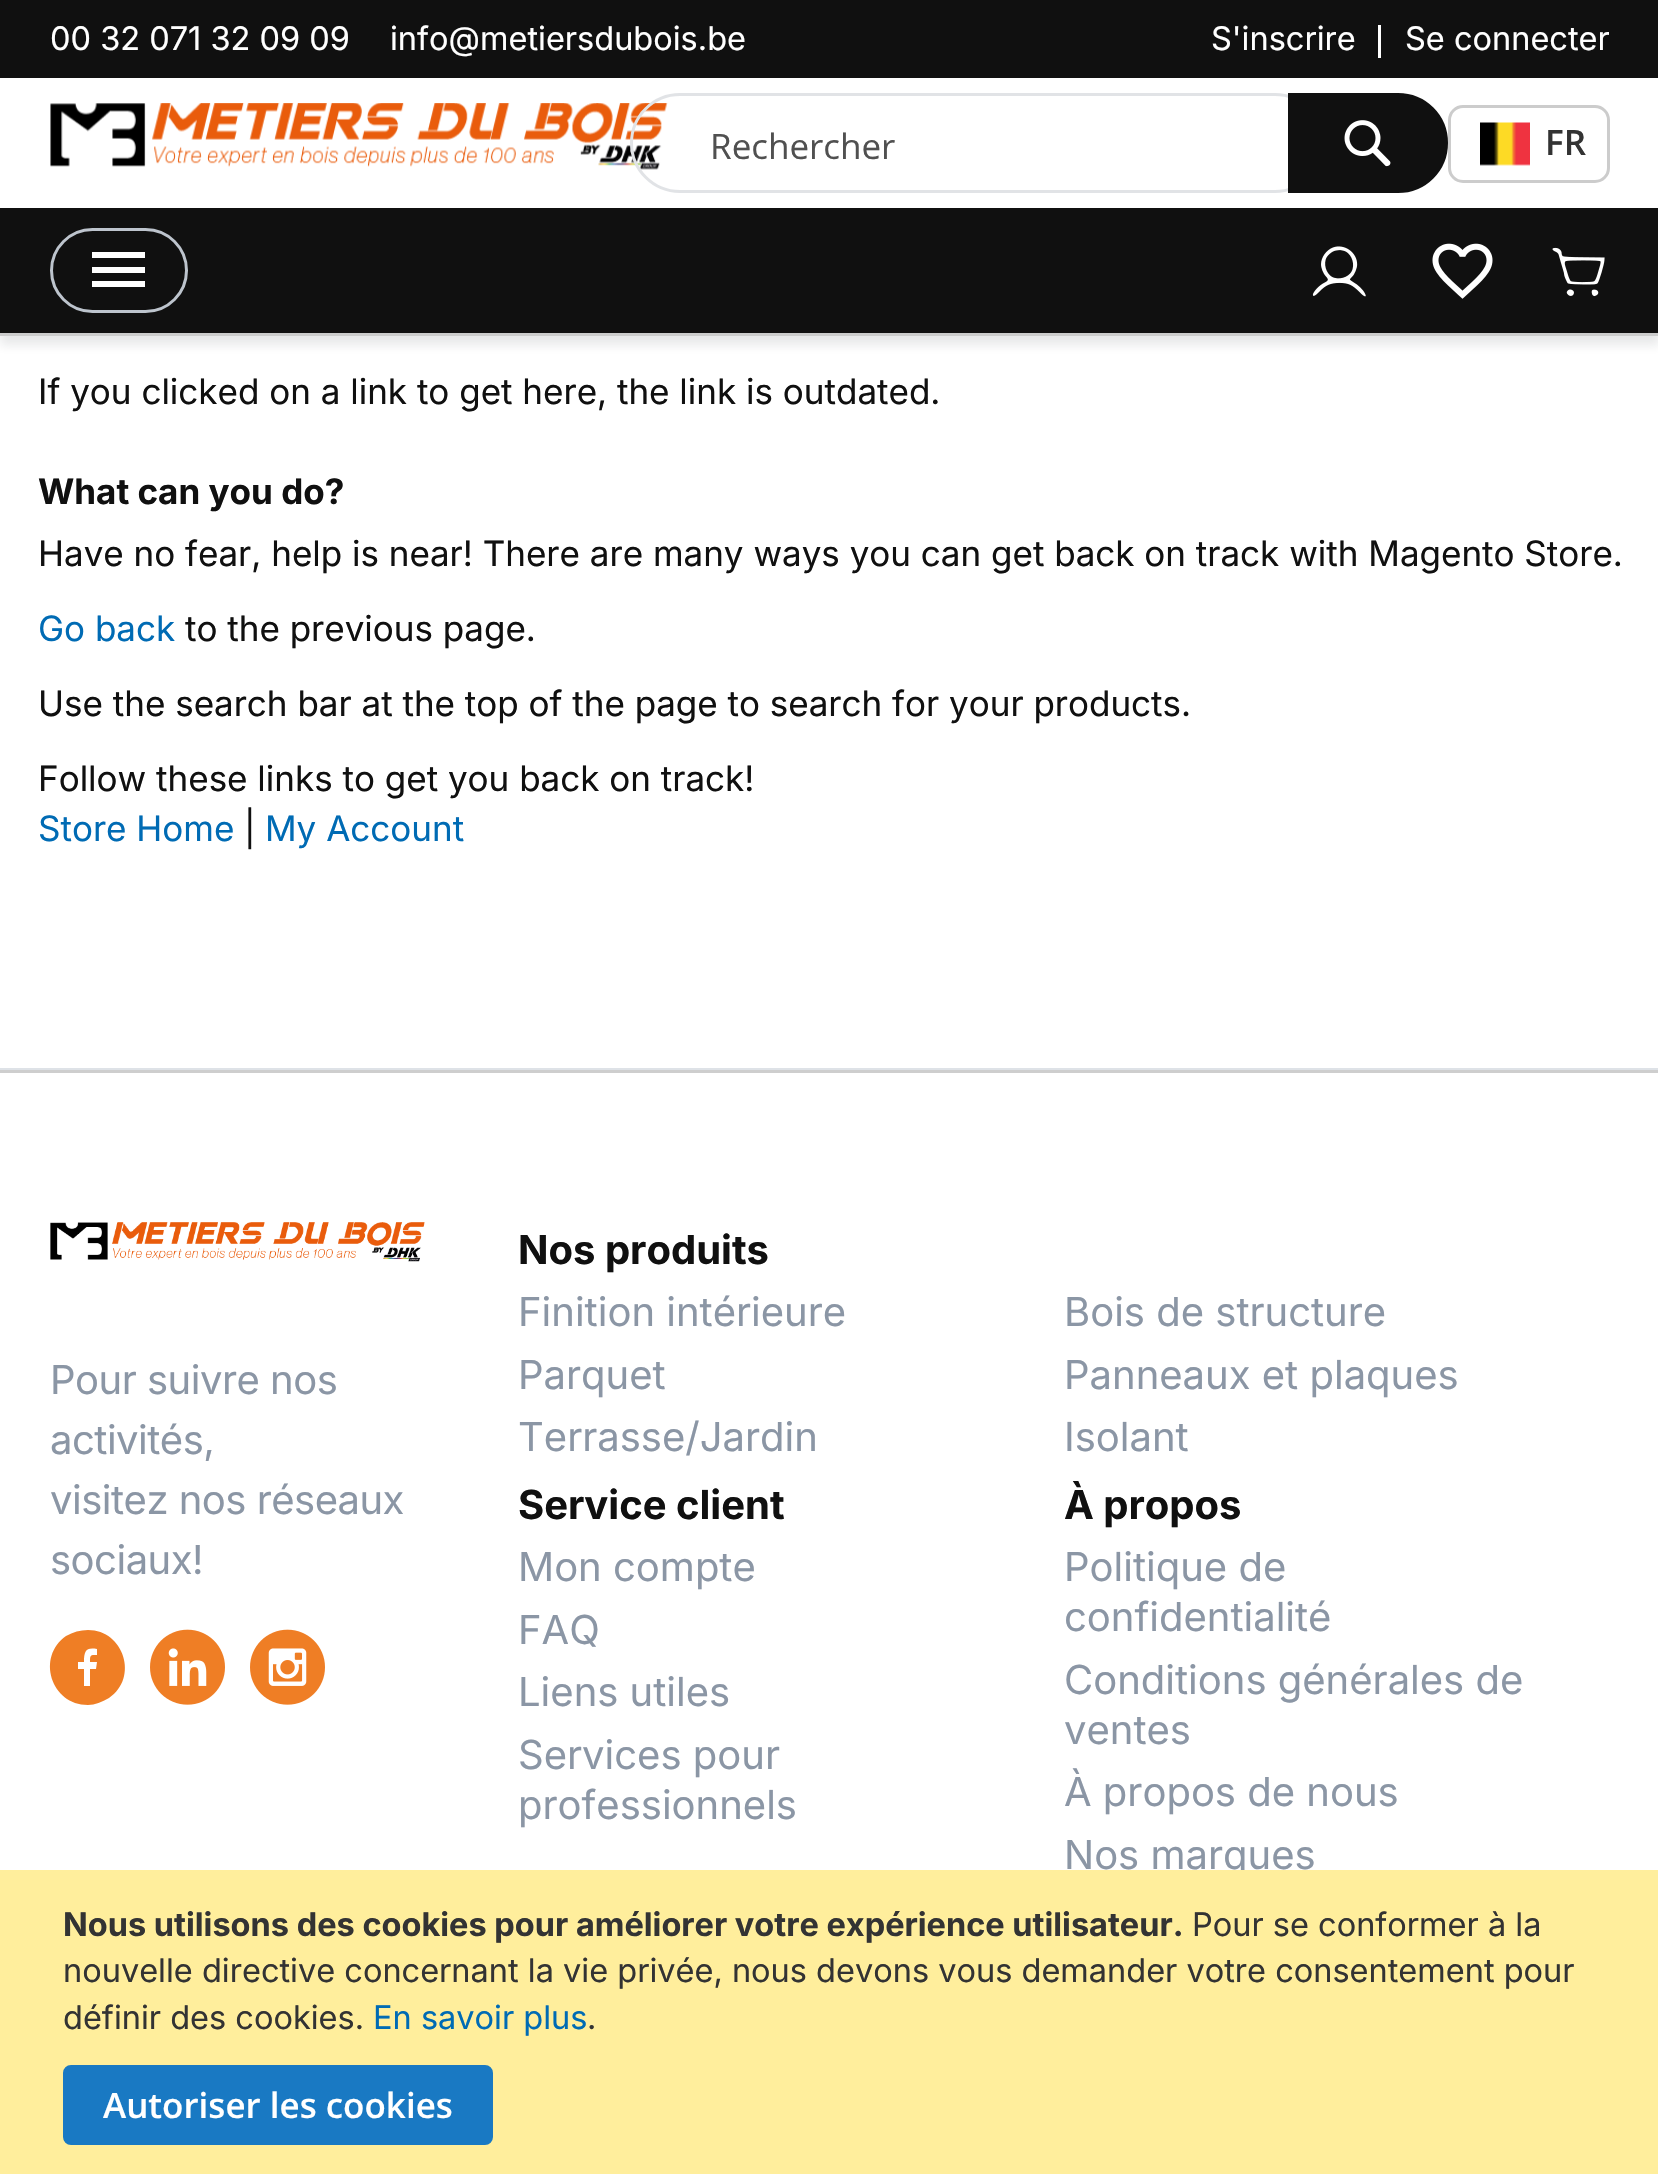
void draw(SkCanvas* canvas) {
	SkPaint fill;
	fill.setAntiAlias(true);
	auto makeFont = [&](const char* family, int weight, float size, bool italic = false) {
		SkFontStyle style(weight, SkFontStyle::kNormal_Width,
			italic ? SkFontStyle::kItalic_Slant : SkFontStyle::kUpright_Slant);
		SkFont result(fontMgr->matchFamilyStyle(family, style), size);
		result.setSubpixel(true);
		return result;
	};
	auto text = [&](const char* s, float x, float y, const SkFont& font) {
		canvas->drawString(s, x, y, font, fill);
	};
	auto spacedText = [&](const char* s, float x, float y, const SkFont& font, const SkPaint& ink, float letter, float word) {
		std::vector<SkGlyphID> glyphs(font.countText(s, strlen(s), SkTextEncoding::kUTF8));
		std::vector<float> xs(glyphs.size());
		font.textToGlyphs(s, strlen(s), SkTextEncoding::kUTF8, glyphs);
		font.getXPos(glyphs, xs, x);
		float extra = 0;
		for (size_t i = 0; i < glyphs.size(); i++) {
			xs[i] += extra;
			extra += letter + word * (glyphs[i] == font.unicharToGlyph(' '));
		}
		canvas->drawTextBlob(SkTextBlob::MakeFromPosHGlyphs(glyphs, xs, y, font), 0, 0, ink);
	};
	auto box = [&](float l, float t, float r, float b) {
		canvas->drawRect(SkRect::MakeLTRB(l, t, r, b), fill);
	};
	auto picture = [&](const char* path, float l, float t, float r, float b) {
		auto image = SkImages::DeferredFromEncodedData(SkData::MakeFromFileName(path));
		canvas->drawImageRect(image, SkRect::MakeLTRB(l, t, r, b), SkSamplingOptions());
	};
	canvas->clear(0xFFFFFFFF);
	fill.setColor(0x1A181C2B);
	fill.setMaskFilter(SkMaskFilter::MakeBlur(kNormal_SkBlurStyle, 5));
	canvas->drawRect(SkRect::MakeLTRB(0, 10, 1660, 345), fill);
	fill.setMaskFilter(nullptr);
	fill.setColor(0xFFFFFFFF);
	box(0, 78, 1658, 208);
	fill.setColor(0xFFCCCCCC);
	box(0, 333, 1658, 336);
	fill.setColor(0xFF101010);
	box(0, 0, 1658, 78);
	fill.setColor(0xFFFFFFFF);
	box(1378, 25, 1381, 58);
	picture("image0.png", 50, 103, 668, 170);
	fill.setStyle(SkPaint::kStroke_Style);
	fill.setStrokeWidth(3);
	fill.setColor(0xFFE1E3E6);
	canvas->drawRoundRect(SkRect::MakeLTRB(631.5f, 94.5f, 1323.5f, 191.5f), 48.5f, 48.5f, fill);
	fill.setStyle(SkPaint::kFill_Style);
	fill.setColor(0xFF101010);
	canvas->drawPath(SkPathBuilder().moveTo(1289.5f, 94.5f).lineTo(1398, 94.5f).cubicTo(1425, 94.5f, 1446.5f, 116, 1446.5f, 143).cubicTo(1446.5f, 170, 1425, 191.5f, 1398, 191.5f).lineTo(1289.5f, 191.5f).close().detach(), fill);
	fill.setStyle(SkPaint::kStroke_Style);
	canvas->drawPath(SkPathBuilder().moveTo(1289.5f, 94.5f).lineTo(1398, 94.5f).cubicTo(1425, 94.5f, 1446.5f, 116, 1446.5f, 143).cubicTo(1446.5f, 170, 1425, 191.5f, 1398, 191.5f).lineTo(1289.5f, 191.5f).close().detach(), fill);
	picture("image1.png", 1344, 120, 1391, 167);
	fill.setColor(0xFFCCCCCC);
	canvas->drawRoundRect(SkRect::MakeLTRB(1449.5f, 106.5f, 1608.5f, 181.5f), 13.5f, 13.5f, fill);
	picture("image2.png", 1480, 122, 1530, 166);
	fill.setStyle(SkPaint::kFill_Style);
	fill.setColor(0xFF101010);
	box(0, 208, 1658, 333);
	picture("image3.png", 1312, 246, 1366, 297);
	picture("image4.png", 1432, 243, 1493, 299);
	picture("image5.png", 1552, 247, 1605, 297);
	fill.setStyle(SkPaint::kStroke_Style);
	fill.setColor(0xFFBDC4CD);
	canvas->drawRoundRect(SkRect::MakeLTRB(51.5f, 229.5f, 186.5f, 311.5f), 41, 41, fill);
	fill.setStyle(SkPaint::kFill_Style);
	fill.setColor(0xFFFFFFFF);
	canvas->drawPath(SkPathBuilder().moveTo(92, 287).lineTo(145, 287).lineTo(145, 281).lineTo(92, 281).close().moveTo(92, 273).lineTo(145, 273).lineTo(145, 267).lineTo(92, 267).close().moveTo(92, 252).lineTo(92, 258).lineTo(145, 258).lineTo(145, 252).close().detach(), fill);
	fill.setColor(0xFFDEE2E7);
	box(0, 1068, 1658, 1070);
	fill.setColor(0xFFCECECE);
	box(0, 1070, 1658, 1073);
	picture("image6.png", 50, 1222, 425, 1262);
	fill.setColor(0xFFEF7E25);
	canvas->drawPath(SkPathBuilder().moveTo(97, 1655).cubicTo(90, 1655, 90, 1655, 90, 1662).lineTo(97, 1662).lineTo(96, 1669).lineTo(90, 1669).lineTo(90, 1686).lineTo(84, 1686).lineTo(84, 1669).lineTo(78, 1669).lineTo(78, 1662).lineTo(84, 1662).cubicTo(84, 1651, 86, 1647, 97, 1649).close().moveTo(88, 1630).cubicTo(80, 1630, 73, 1632, 66, 1636).cubicTo(36, 1657, 51, 1705, 88, 1705).cubicTo(95, 1705, 102, 1702, 109, 1698).cubicTo(139, 1678, 124, 1630, 88, 1630).close().detach(), fill);
	picture("image7.png", 150, 1629, 225, 1705);
	picture("image8.png", 250, 1629, 325, 1705);
	auto font1 = makeFont("Inter", 400, 32.5f);
	fill.setColor(0xFFFFFFFF);
	text("00 32 071 32 09 09", 50, 50, font1);
	text("info@metiersdubois.be", 390, 50, font1);
	text("S'inscrire", 1211, 50, font1);
	text("Se connecter", 1405, 50, font1);
	auto font2 = makeFont("Open Sans", 400, 35);
	fill.setColor(0xFF505050);
	text("Rechercher", 710, 159, font2);
	auto font3 = makeFont("Open Sans", 600, 35);
	fill.setColor(0xFF333333);
	text("FR", 1545, 155, font3);
	auto font4 = makeFont("Inter", 400, 35);
	fill.setColor(0xFF101010);
	text("If you clicked on a link to get here, the link is outdated.", 38, 404, font4);
	auto font5 = makeFont("Inter", 700, 35);
	text("What can you do?", 38, 504, font5);
	text("Have no fear, help is near! There are many ways you can get back on track with Magento Store.", 38, 566, font4);
	fill.setColor(0xFF006BB4);
	text("Go back", 38, 641, font4);
	fill.setColor(0xFF101010);
	text("to the previous page.", 185, 641, font4);
	text("Use the search bar at the top of the page to search for your products.", 38, 716, font4);
	text("Follow these links to get you back on track!", 38, 791, font4);
	fill.setColor(0xFF006BB4);
	text("Store Home", 38, 841, font4);
	fill.setColor(0xFF101010);
	text("|", 244, 841, font4);
	fill.setColor(0xFF006BB4);
	text("My Account", 265, 841, font4);
	auto font6 = makeFont("Inter", 400, 40);
	fill.setColor(0xFF8B96A5);
	spacedText("Pour suivre nos", 50, 1394, font6, fill, -0.5f, 0);
	spacedText("activités,", 50, 1454, font6, fill, -0.5f, 0);
	spacedText("visitez nos réseaux", 50, 1514, font6, fill, -0.5f, 0);
	spacedText("sociaux!", 50, 1574, font6, fill, -0.5f, 0);
	auto font7 = makeFont("Inter", 700, 40);
	fill.setColor(0xFF101010);
	text("Nos produits", 518, 1264, font7);
	fill.setColor(0xFF8B96A5);
	text("Finition intérieure", 518, 1326, font6);
	text("Parquet", 518, 1389, font6);
	text("Terrasse/Jardin", 518, 1451, font6);
	text("Bois de structure", 1064, 1326, font6);
	text("Panneaux et plaques", 1064, 1389, font6);
	text("Isolant", 1064, 1451, font6);
	fill.setColor(0xFF101010);
	text("Service client", 518, 1519, font7);
	fill.setColor(0xFF8B96A5);
	text("Mon compte", 518, 1581, font6);
	text("FAQ", 518, 1644, font6);
	text("Liens utiles", 518, 1706, font6);
	text("Services pour", 518, 1769, font6);
	text("professionnels", 518, 1819, font6);
	fill.setColor(0xFF101010);
	text("À propos", 1064, 1519, font7);
	fill.setColor(0xFF8B96A5);
	text("Politique de", 1064, 1581, font6);
	text("confidentialité", 1064, 1631, font6);
	text("Conditions générales de", 1064, 1694, font6);
	text("ventes", 1064, 1744, font6);
	text("À propos de nous", 1064, 1806, font6);
	text("Nos marques", 1064, 1869, font6);
	fill.setColor(0xFFFFEE9C);
	box(0, 1870, 1658, 2174);
	auto font8 = makeFont("Inter", 700, 32.5f);
	fill.setColor(0xFF333333);
	text("Nous utilisons des cookies pour améliorer votre expérience utilisateur.", 63, 1936, font8);
	text("Pour se conformer à la", 1192, 1936, font1);
	text("nouvelle directive concernant la vie privée, nous devons vous demander votre consentement pour", 63, 1982, font1);
	text("définir des cookies.", 63, 2029, font1);
	fill.setColor(0xFF006BB4);
	text("En savoir plus", 373, 2029, font1);
	fill.setColor(0xFF333333);
	text(".", 587, 2029, font1);
	fill.setColor(0xFF1979C3);
	canvas->drawRoundRect(SkRect::MakeLTRB(64.5f, 2066.5f, 491.5f, 2143.5f), 6.5f, 6.5f, fill);
	fill.setStyle(SkPaint::kStroke_Style);
	canvas->drawRoundRect(SkRect::MakeLTRB(64.5f, 2066.5f, 491.5f, 2143.5f), 6.5f, 6.5f, fill);
	fill.setStyle(SkPaint::kFill_Style);
	fill.setColor(0xFFFFFFFF);
	text("Autoriser les cookies", 103, 2118, font3);
}
